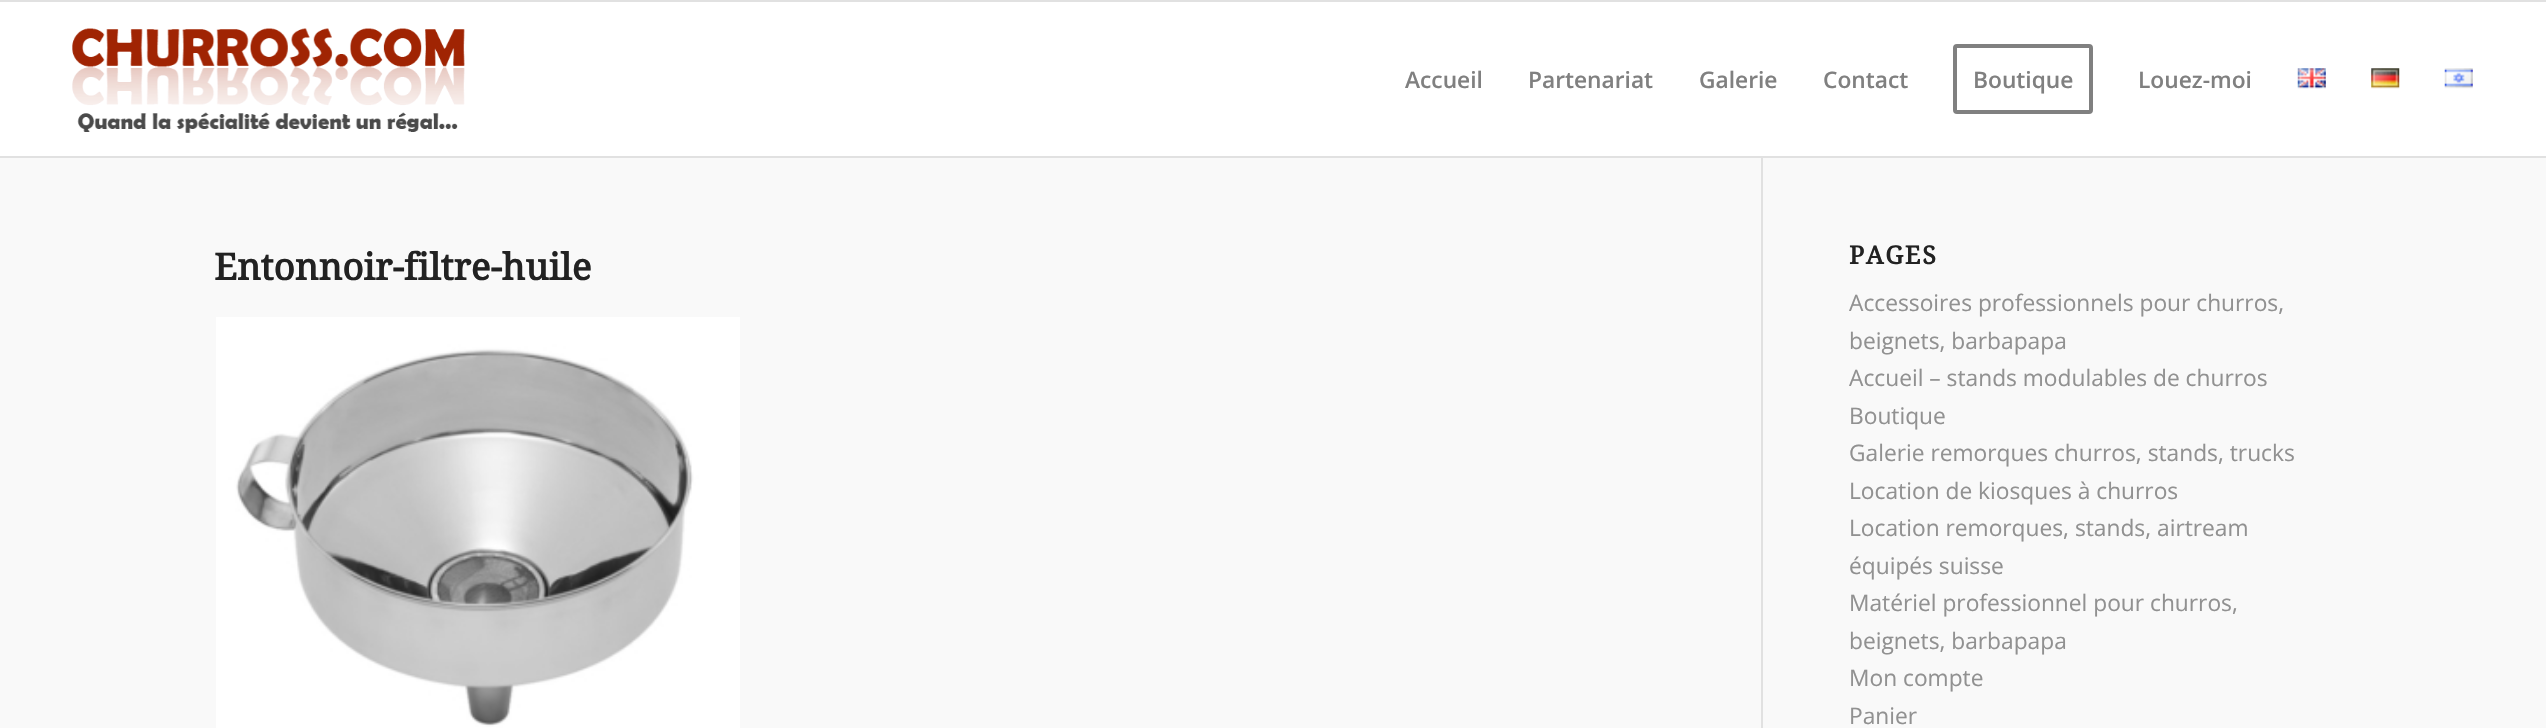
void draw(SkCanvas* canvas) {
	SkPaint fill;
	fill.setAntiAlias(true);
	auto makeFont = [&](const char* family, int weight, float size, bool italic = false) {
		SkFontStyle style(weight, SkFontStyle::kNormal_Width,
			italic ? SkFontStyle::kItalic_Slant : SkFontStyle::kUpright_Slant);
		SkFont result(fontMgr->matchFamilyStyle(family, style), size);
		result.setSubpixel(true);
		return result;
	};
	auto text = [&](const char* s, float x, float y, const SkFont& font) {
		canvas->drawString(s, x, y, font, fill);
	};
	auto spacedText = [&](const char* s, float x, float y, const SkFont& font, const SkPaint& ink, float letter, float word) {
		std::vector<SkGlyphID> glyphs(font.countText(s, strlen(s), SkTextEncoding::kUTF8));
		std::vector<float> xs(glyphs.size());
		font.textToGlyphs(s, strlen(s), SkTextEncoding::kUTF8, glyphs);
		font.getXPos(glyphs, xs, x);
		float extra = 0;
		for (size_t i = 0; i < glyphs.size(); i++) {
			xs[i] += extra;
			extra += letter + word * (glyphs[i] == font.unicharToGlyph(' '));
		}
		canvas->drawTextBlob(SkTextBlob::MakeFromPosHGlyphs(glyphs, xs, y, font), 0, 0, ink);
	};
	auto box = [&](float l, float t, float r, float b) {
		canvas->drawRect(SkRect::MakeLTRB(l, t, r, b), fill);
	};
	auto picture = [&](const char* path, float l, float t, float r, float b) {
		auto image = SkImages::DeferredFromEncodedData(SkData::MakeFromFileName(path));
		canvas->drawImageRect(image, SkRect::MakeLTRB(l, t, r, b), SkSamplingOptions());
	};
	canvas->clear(0xFFFFFFFF);
	fill.setColor(0xFFE1E1E1);
	box(0, 0, 2546, 2);
	fill.setColor(0xFFF9F9F9);
	box(0, 158, 2546, 728);
	fill.setColor(0xFFE1E1E1);
	box(1761, 156, 1763, 728);
	box(0, 156, 2546, 158);
	picture("image0.png", 72, 28, 465, 133);
	fill.setStyle(SkPaint::kStroke_Style);
	fill.setStrokeWidth(4);
	fill.setColor(0xFF808080);
	canvas->drawRoundRect(SkRect::MakeLTRB(1955, 46, 2091, 112), 2, 2, fill);
	picture("image1.png", 2297, 68, 2326, 89);
	picture("image2.png", 2371, 68, 2400, 89);
	picture("image3.png", 2444, 68, 2473, 89);
	picture("image4.png", 216, 317, 740, 728);
	auto font1 = makeFont("Open Sans", 600, 22.75f);
	fill.setStyle(SkPaint::kFill_Style);
	text("Accueil", 1405, 88, font1);
	text("Partenariat", 1528, 88, font1);
	text("Galerie", 1699, 88, font1);
	text("Contact", 1823, 88, font1);
	text("Boutique", 1973, 88, font1);
	text("Louez-moi", 2138, 88, font1);
	auto font2 = makeFont("Droid Serif", 700, 36.75f);
	fill.setColor(0xFF222222);
	text("Entonnoir-filtre-huile", 214, 280, font2);
	auto font3 = makeFont("Droid Serif", 700, 25);
	spacedText("PAGES", 1849, 264, font3, fill, 1.75f, 0);
	auto font4 = makeFont("Open Sans", 400, 22.75f);
	fill.setColor(0xFF919191);
	text("Accessoires professionnels pour churros,", 1849, 311, font4);
	text("beignets, barbapapa", 1849, 349, font4);
	text("Accueil – stands modulables de churros", 1849, 386, font4);
	text("Boutique", 1849, 424, font4);
	text("Galerie remorques churros, stands, trucks", 1849, 461, font4);
	text("Location de kiosques à churros", 1849, 499, font4);
	text("Location remorques, stands, airtream", 1849, 536, font4);
	text("équipés suisse", 1849, 574, font4);
	text("Matériel professionnel pour churros,", 1849, 611, font4);
	text("beignets, barbapapa", 1849, 649, font4);
	text("Mon compte", 1849, 686, font4);
	text("Panier", 1849, 724, font4);
}
